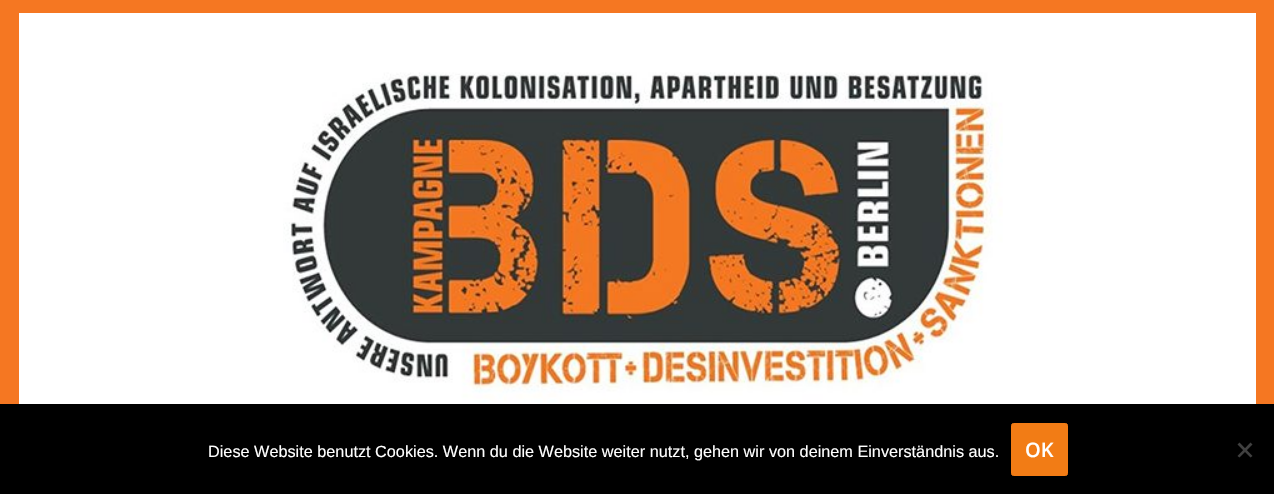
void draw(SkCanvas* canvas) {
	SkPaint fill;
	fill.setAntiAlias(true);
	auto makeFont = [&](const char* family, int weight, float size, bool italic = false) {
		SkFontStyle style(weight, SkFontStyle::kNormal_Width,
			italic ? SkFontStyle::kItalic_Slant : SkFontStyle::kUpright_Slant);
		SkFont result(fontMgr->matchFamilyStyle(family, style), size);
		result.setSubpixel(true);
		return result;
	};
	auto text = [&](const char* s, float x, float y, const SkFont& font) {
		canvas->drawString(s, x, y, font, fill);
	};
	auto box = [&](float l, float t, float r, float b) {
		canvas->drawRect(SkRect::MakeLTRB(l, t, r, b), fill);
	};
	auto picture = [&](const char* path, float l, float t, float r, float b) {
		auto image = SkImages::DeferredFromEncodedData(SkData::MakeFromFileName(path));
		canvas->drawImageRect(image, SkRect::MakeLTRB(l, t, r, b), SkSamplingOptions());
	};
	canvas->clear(0xFFF57722);
	fill.setColor(0xFFFFFFFF);
	box(19, 13, 1256, 404);
	picture("image0.png", 283, 72, 1003, 403);
	fill.setColor(0xFF000000);
	box(0, 404, 1274, 494);
	fill.setColor(0xFFF27C15);
	canvas->drawRoundRect(SkRect::MakeLTRB(1011.5f, 423.5f, 1067.5f, 475.5f), 2, 2, fill);
	fill.setStyle(SkPaint::kStroke_Style);
	fill.setStrokeWidth(1);
	canvas->drawRoundRect(SkRect::MakeLTRB(1011.5f, 423.5f, 1067.5f, 475.5f), 2, 2, fill);
	fill.setStyle(SkPaint::kFill_Style);
	fill.setColor(0xFF404040);
	canvas->drawPath(SkPathBuilder().moveTo(1250.5f, 442.5f).lineTo(1252.5f, 444.5f).lineTo(1239.5f, 457.5f).lineTo(1237.5f, 456).close().detach(), fill);
	canvas->drawPath(SkPathBuilder().moveTo(1237.5f, 444.5f).lineTo(1239.5f, 442.5f).lineTo(1252.5f, 456).lineTo(1250.5f, 457.5f).close().detach(), fill);
	auto font1 = makeFont("Liberation Sans", 400, 16.25f);
	fill.setColor(0xFFFFFFFF);
	text("Diese Website benutzt Cookies. Wenn du die Website weiter nutzt, gehen wir von deinem Einverständnis aus.", 208, 457, font1);
	auto font2 = makeFont("Open Sans", 600, 20);
	text("OK", 1025, 457, font2);
}
